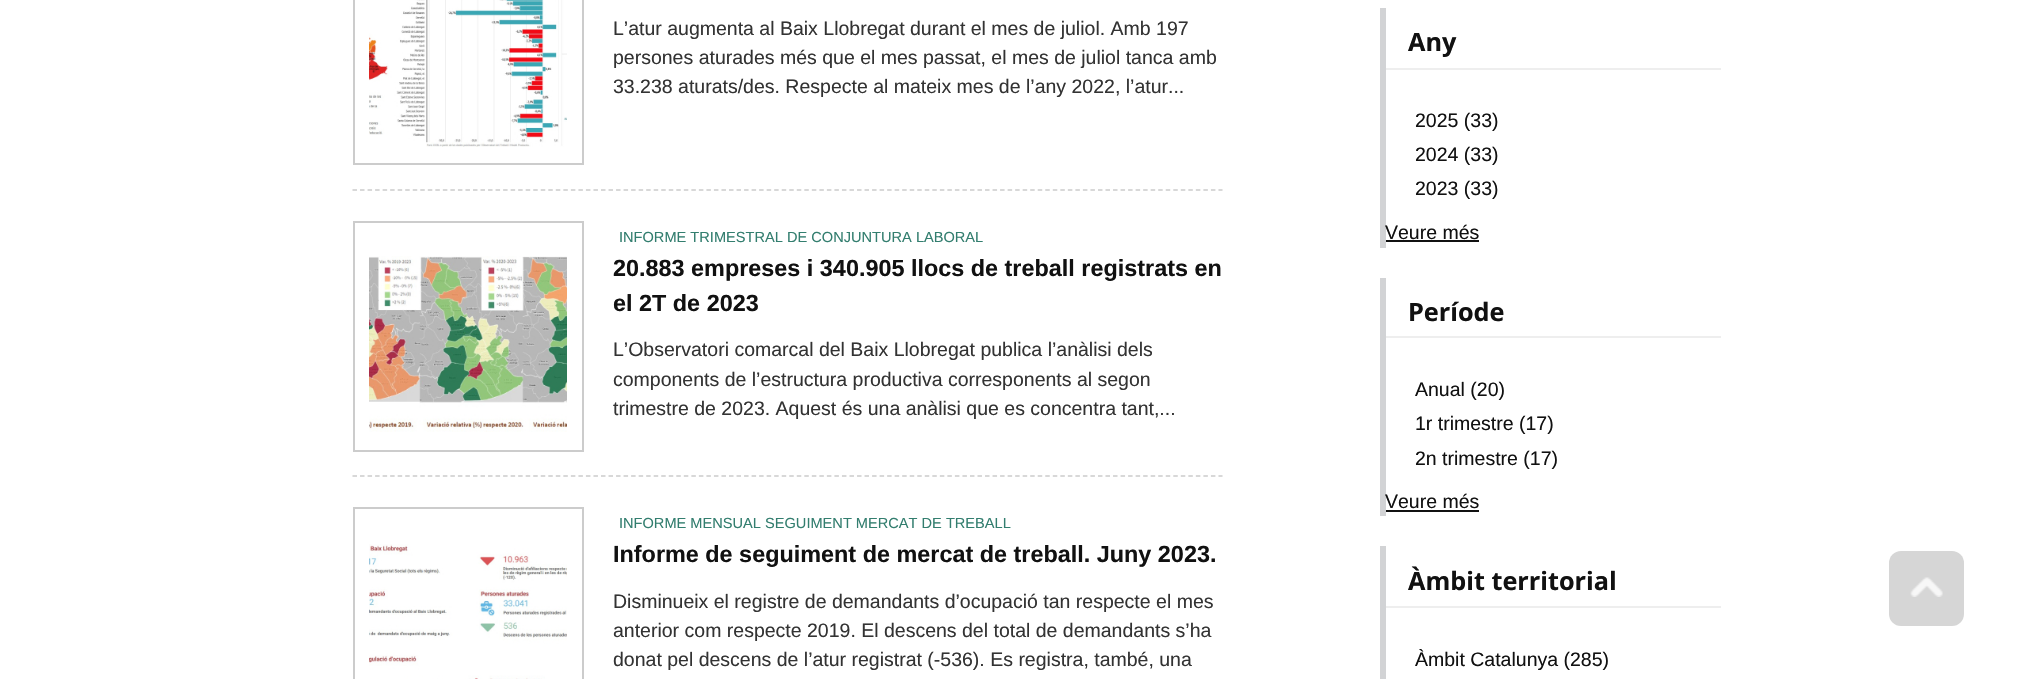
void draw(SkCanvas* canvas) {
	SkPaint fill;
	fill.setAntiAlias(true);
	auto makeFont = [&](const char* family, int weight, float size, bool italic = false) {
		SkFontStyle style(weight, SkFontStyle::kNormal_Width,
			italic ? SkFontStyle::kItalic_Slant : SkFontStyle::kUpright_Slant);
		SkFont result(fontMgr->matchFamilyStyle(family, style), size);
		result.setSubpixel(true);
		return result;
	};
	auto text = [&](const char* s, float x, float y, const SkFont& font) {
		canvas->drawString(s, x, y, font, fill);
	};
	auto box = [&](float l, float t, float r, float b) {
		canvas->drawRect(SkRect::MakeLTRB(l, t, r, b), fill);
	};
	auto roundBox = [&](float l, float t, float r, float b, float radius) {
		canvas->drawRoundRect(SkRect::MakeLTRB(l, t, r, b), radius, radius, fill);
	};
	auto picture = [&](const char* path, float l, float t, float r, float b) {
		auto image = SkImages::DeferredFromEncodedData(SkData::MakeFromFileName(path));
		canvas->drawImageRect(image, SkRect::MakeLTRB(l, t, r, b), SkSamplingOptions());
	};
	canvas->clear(0xFFFFFFFF);
	fill.setStyle(SkPaint::kStroke_Style);
	fill.setStrokeWidth(1.5f);
	fill.setColor(0xFFCCCCCC);
	fill.setPathEffect(SkDashPathEffect::Make({{4.5f, 3.03f}}, 0));
	canvas->drawPath(SkPathBuilder().moveTo(352.5f, 190).lineTo(1222.5f, 190).detach(), fill);
	fill.setPathEffect(nullptr);
	fill.setStrokeWidth(2);
	canvas->drawRect(SkRect::MakeLTRB(354, -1, 583, 164), fill);
	picture("image0.png", 369, 0, 567, 147);
	fill.setStrokeWidth(1.5f);
	fill.setPathEffect(SkDashPathEffect::Make({{4.5f, 3.03f}}, 0));
	canvas->drawPath(SkPathBuilder().moveTo(352.5f, 476).lineTo(1222.5f, 476).detach(), fill);
	fill.setPathEffect(nullptr);
	fill.setStrokeWidth(2);
	canvas->drawRect(SkRect::MakeLTRB(354, 222, 583, 451), fill);
	picture("image1.png", 369, 256, 567, 432);
	canvas->drawRect(SkRect::MakeLTRB(354, 508, 583, 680), fill);
	picture("image2.png", 369, 544, 567, 679);
	fill.setStyle(SkPaint::kFill_Style);
	fill.setColor(0xFFD2D3D5);
	box(1380, 8, 1386, 248);
	fill.setColor(0xFFEEEEEE);
	box(1386, 68, 1721, 70);
	fill.setColor(0xFF111111);
	box(1386, 240, 1479, 242);
	fill.setColor(0xFFD2D3D5);
	box(1380, 278, 1386, 516);
	fill.setColor(0xFFEEEEEE);
	box(1386, 336, 1721, 338);
	fill.setColor(0xFF111111);
	box(1386, 510, 1479, 512);
	fill.setColor(0xFFD2D3D5);
	box(1380, 546, 1386, 679);
	fill.setColor(0xFFEEEEEE);
	box(1386, 606, 1721, 608);
	fill.setColor(0xFFD6D6D6);
	roundBox(1889, 551, 1964, 626, 12);
	picture("image3.png", 1910, 577, 1943, 597);
	auto font1 = makeFont("Liberation Sans", 400, 19.5f);
	fill.setColor(0xFF333333);
	text("L’atur augmenta al Baix Llobregat durant el mes de juliol. Amb 197", 613, 35, font1);
	text("persones aturades més que el mes passat, el mes de juliol tanca amb", 613, 64, font1);
	text("33.238 aturats/des. Respecte al mateix mes de l’any 2022, l’atur...", 613, 93, font1);
	auto font2 = makeFont("Liberation Sans", 400, 14.6f);
	fill.setColor(0xFF337E6F);
	text("INFORME TRIMESTRAL DE CONJUNTURA LABORAL", 619, 242, font2);
	auto font3 = makeFont("Liberation Sans", 700, 23.4f);
	fill.setColor(0xFF111111);
	text("20.883 empreses i 340.905 llocs de treball registrats en", 613, 276, font3);
	text("el 2T de 2023", 613, 311, font3);
	fill.setColor(0xFF333333);
	text("L’Observatori comarcal del Baix Llobregat publica l’anàlisi dels", 613, 356, font1);
	text("components de l’estructura productiva corresponents al segon", 613, 386, font1);
	text("trimestre de 2023. Aquest és una anàlisi que es concentra tant,...", 613, 415, font1);
	fill.setColor(0xFF337E6F);
	text("INFORME MENSUAL SEGUIMENT MERCAT DE TREBALL", 619, 528, font2);
	fill.setColor(0xFF111111);
	text("Informe de seguiment de mercat de treball. Juny 2023.", 613, 562, font3);
	fill.setColor(0xFF333333);
	text("Disminueix el registre de demandants d’ocupació tan respecte el mes", 613, 608, font1);
	text("anterior com respecte 2019. El descens del total de demandants s’ha", 613, 637, font1);
	text("donat pel descens de l’atur registrat (-536). Es registra, també, una", 613, 666, font1);
	auto font4 = makeFont("Open Sans", 700, 25.25f);
	fill.setColor(0xFF111111);
	text("Any", 1408, 51, font4);
	text("2025 (33)", 1415, 127, font1);
	text("2024 (33)", 1415, 161, font1);
	text("2023 (33)", 1415, 195, font1);
	text("Veure més", 1385, 239, font1);
	text("Període", 1408, 321, font4);
	text("Anual (20)", 1415, 396, font1);
	text("1r trimestre (17)", 1415, 430, font1);
	text("2n trimestre (17)", 1415, 465, font1);
	text("Veure més", 1385, 508, font1);
	text("Àmbit territorial", 1408, 590, font4);
	text("Àmbit Catalunya (285)", 1415, 666, font1);
}
